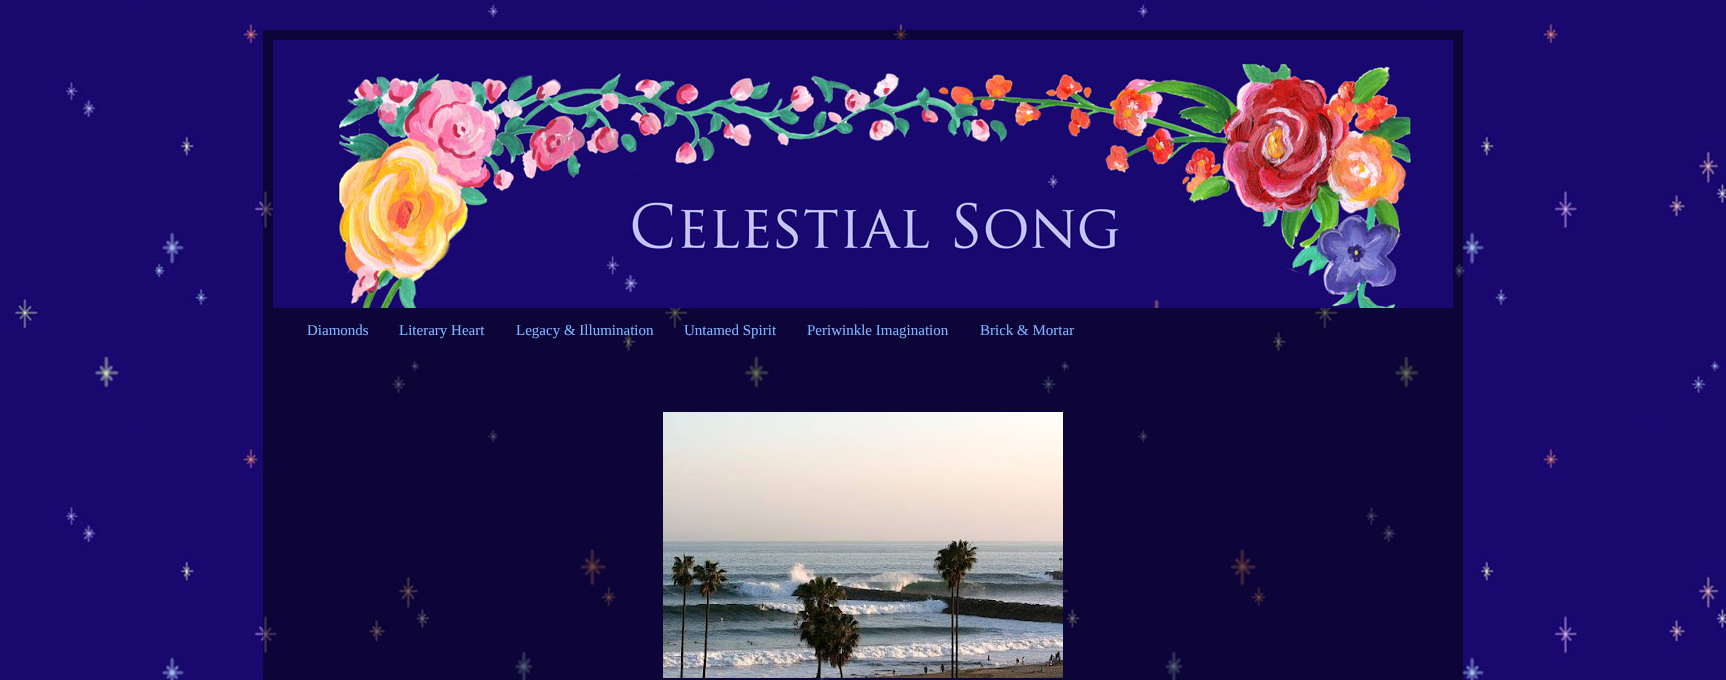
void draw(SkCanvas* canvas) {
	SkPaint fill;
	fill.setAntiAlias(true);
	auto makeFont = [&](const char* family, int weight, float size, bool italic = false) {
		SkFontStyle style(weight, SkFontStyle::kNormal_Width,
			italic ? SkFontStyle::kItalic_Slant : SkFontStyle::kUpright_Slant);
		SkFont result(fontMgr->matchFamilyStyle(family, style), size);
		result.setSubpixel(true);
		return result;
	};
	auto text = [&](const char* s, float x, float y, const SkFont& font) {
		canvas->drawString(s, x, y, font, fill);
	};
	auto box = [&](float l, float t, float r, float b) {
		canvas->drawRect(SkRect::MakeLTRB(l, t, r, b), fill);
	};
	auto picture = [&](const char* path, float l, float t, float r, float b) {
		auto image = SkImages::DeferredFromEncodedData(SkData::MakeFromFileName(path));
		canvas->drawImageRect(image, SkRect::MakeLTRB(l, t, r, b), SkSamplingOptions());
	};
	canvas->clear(0xFFFFFFFF);
	picture("image0.png", 0, 0, 1726, 680);
	canvas->save();
	canvas->clipPath(SkPathBuilder(SkPathFillType::kEvenOdd).moveTo(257, 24).lineTo(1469, 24).lineTo(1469, 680).lineTo(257, 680).close().moveTo(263, 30).lineTo(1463, 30).lineTo(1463, 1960).lineTo(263, 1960).close().detach(), true);
	fill.setColor(0x26000000);
	fill.setMaskFilter(SkMaskFilter::MakeBlur(kNormal_SkBlurStyle, 1.5f));
	canvas->drawRect(SkRect::MakeLTRB(263, 30, 1463, 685), fill);
	fill.setMaskFilter(nullptr);
	canvas->restore();
	fill.setColor(0x80000000);
	box(263, 30, 1463, 680);
	picture("image1.png", 273, 40, 1453, 308);
	picture("image2.png", 663, 412, 1063, 678);
	auto font1 = makeFont("Liberation Serif", 400, 15);
	fill.setColor(0xFF7FB2FF);
	text("Diamonds", 307, 335, font1);
	text("Literary Heart", 399, 335, font1);
	text("Legacy & Illumination", 516, 335, font1);
	text("Untamed Spirit", 684, 335, font1);
	text("Periwinkle Imagination", 807, 335, font1);
	text("Brick & Mortar", 980, 335, font1);
}
